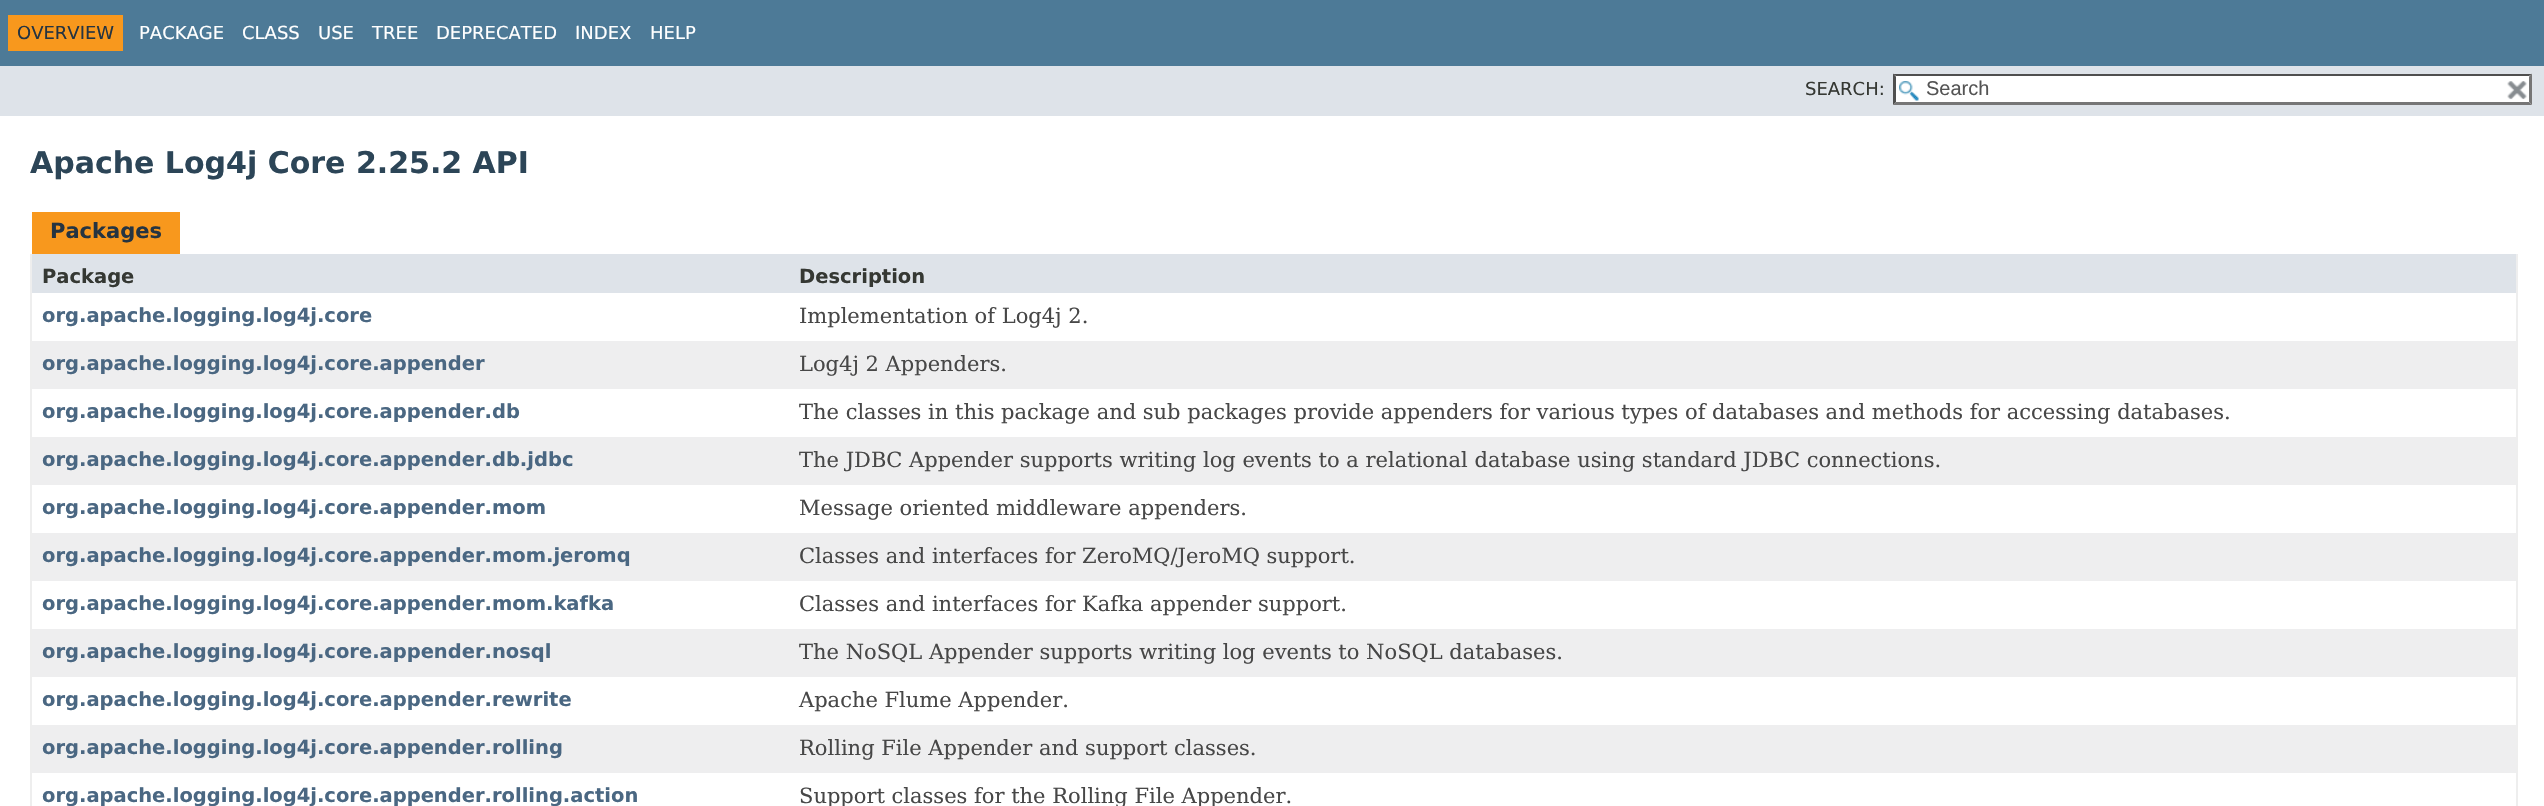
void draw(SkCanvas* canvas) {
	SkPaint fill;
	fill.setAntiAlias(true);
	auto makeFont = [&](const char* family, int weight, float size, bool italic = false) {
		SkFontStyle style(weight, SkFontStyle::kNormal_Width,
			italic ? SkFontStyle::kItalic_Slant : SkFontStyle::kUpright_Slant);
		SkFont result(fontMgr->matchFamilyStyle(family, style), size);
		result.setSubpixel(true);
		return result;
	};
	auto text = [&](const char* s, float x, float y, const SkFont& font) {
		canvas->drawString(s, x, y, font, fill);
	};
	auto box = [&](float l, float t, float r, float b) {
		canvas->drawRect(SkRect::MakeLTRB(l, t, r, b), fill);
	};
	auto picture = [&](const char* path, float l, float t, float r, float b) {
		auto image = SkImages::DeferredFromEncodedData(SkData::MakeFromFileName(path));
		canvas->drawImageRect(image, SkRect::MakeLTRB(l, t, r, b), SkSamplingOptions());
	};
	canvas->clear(0xFFFFFFFF);
	fill.setColor(0xFF4D7A97);
	box(0, 0, 2544, 66);
	fill.setColor(0xFFF8981D);
	box(8, 15, 123, 51);
	fill.setColor(0xFFDEE3E9);
	box(0, 66, 2544, 116);
	fill.setColor(0xFFFFFFFF);
	box(1893, 74, 2532, 105);
	picture("image0.png", 1899, 81, 1919, 101);
	fill.setColor(0xFF4F4F4F);
	canvas->drawPath(SkPathBuilder().moveTo(1893, 74).lineTo(2532, 74).lineTo(2529, 76).lineTo(1896, 76).close().detach(), fill);
	fill.setColor(0xFF767676);
	canvas->drawPath(SkPathBuilder().moveTo(2532, 73.5f).lineTo(2532, 105).lineTo(2529, 102).lineTo(2529, 76.5f).close().detach(), fill);
	canvas->drawPath(SkPathBuilder().moveTo(2532, 105).lineTo(1893, 105).lineTo(1896, 102).lineTo(2529, 102).close().detach(), fill);
	fill.setColor(0xFF4F4F4F);
	canvas->drawPath(SkPathBuilder().moveTo(1893, 105).lineTo(1893, 73.5f).lineTo(1896, 76.5f).lineTo(1896, 102).close().detach(), fill);
	picture("image1.png", 2507, 81, 2527, 100);
	fill.setColor(0xFFF8981D);
	box(32, 212, 180, 254);
	fill.setColor(0xFFEEEEEE);
	box(2516, 254, 2518, 806);
	box(30, 254, 32, 806);
	fill.setColor(0xFFDEE3E9);
	box(32, 254, 2516, 293);
	fill.setColor(0xFFEEEEEF);
	box(32, 341, 2516, 389);
	box(32, 437, 2516, 485);
	box(32, 533, 2516, 581);
	box(32, 629, 2516, 677);
	box(32, 725, 2516, 773);
	auto font1 = makeFont("DejaVu Sans", 400, 18);
	fill.setColor(0xFF253441);
	text("OVERVIEW", 17, 39, font1);
	fill.setColor(0xFFFFFFFF);
	text("PACKAGE", 139, 39, font1);
	text("CLASS", 242, 39, font1);
	text("USE", 318, 39, font1);
	text("TREE", 372, 39, font1);
	text("DEPRECATED", 436, 39, font1);
	text("INDEX", 575, 39, font1);
	text("HELP", 650, 39, font1);
	fill.setColor(0xFF353833);
	text("SEARCH:", 1805, 95, font1);
	auto font2 = makeFont("Liberation Sans", 400, 20);
	fill.setColor(0xFF545454);
	text("Search", 1926, 95, font2);
	auto font3 = makeFont("DejaVu Sans", 700, 30);
	fill.setColor(0xFF2C4557);
	text("Apache Log4j Core 2.25.2 API", 30, 173, font3);
	auto font4 = makeFont("DejaVu Sans", 700, 21);
	fill.setColor(0xFF253441);
	text("Packages", 50, 238, font4);
	auto font5 = makeFont("DejaVu Sans", 700, 19.5f);
	fill.setColor(0xFF353833);
	text("Package", 42, 283, font5);
	text("Description", 799, 283, font5);
	fill.setColor(0xFF4A6782);
	text("org.apache.logging.log4j.core", 42, 322, font5);
	auto font6 = makeFont("DejaVu Serif", 400, 21);
	fill.setColor(0xFF474747);
	text("Implementation of Log4j 2.", 799, 323, font6);
	fill.setColor(0xFF4A6782);
	text("org.apache.logging.log4j.core.appender", 42, 370, font5);
	fill.setColor(0xFF474747);
	text("Log4j 2 Appenders.", 799, 371, font6);
	fill.setColor(0xFF4A6782);
	text("org.apache.logging.log4j.core.appender.db", 42, 418, font5);
	fill.setColor(0xFF474747);
	text("The classes in this package and sub packages provide appenders for various types of databases and methods for accessing databases.", 799, 419, font6);
	fill.setColor(0xFF4A6782);
	text("org.apache.logging.log4j.core.appender.db.jdbc", 42, 466, font5);
	fill.setColor(0xFF474747);
	text("The JDBC Appender supports writing log events to a relational database using standard JDBC connections.", 799, 467, font6);
	fill.setColor(0xFF4A6782);
	text("org.apache.logging.log4j.core.appender.mom", 42, 514, font5);
	fill.setColor(0xFF474747);
	text("Message oriented middleware appenders.", 799, 515, font6);
	fill.setColor(0xFF4A6782);
	text("org.apache.logging.log4j.core.appender.mom.jeromq", 42, 562, font5);
	fill.setColor(0xFF474747);
	text("Classes and interfaces for ZeroMQ/JeroMQ support.", 799, 563, font6);
	fill.setColor(0xFF4A6782);
	text("org.apache.logging.log4j.core.appender.mom.kafka", 42, 610, font5);
	fill.setColor(0xFF474747);
	text("Classes and interfaces for Kafka appender support.", 799, 611, font6);
	fill.setColor(0xFF4A6782);
	text("org.apache.logging.log4j.core.appender.nosql", 42, 658, font5);
	fill.setColor(0xFF474747);
	text("The NoSQL Appender supports writing log events to NoSQL databases.", 799, 659, font6);
	fill.setColor(0xFF4A6782);
	text("org.apache.logging.log4j.core.appender.rewrite", 42, 706, font5);
	fill.setColor(0xFF474747);
	text("Apache Flume Appender.", 799, 707, font6);
	fill.setColor(0xFF4A6782);
	text("org.apache.logging.log4j.core.appender.rolling", 42, 754, font5);
	fill.setColor(0xFF474747);
	text("Rolling File Appender and support classes.", 799, 755, font6);
	fill.setColor(0xFF4A6782);
	text("org.apache.logging.log4j.core.appender.rolling.action", 42, 802, font5);
	fill.setColor(0xFF474747);
	text("Support classes for the Rolling File Appender.", 799, 803, font6);
}
